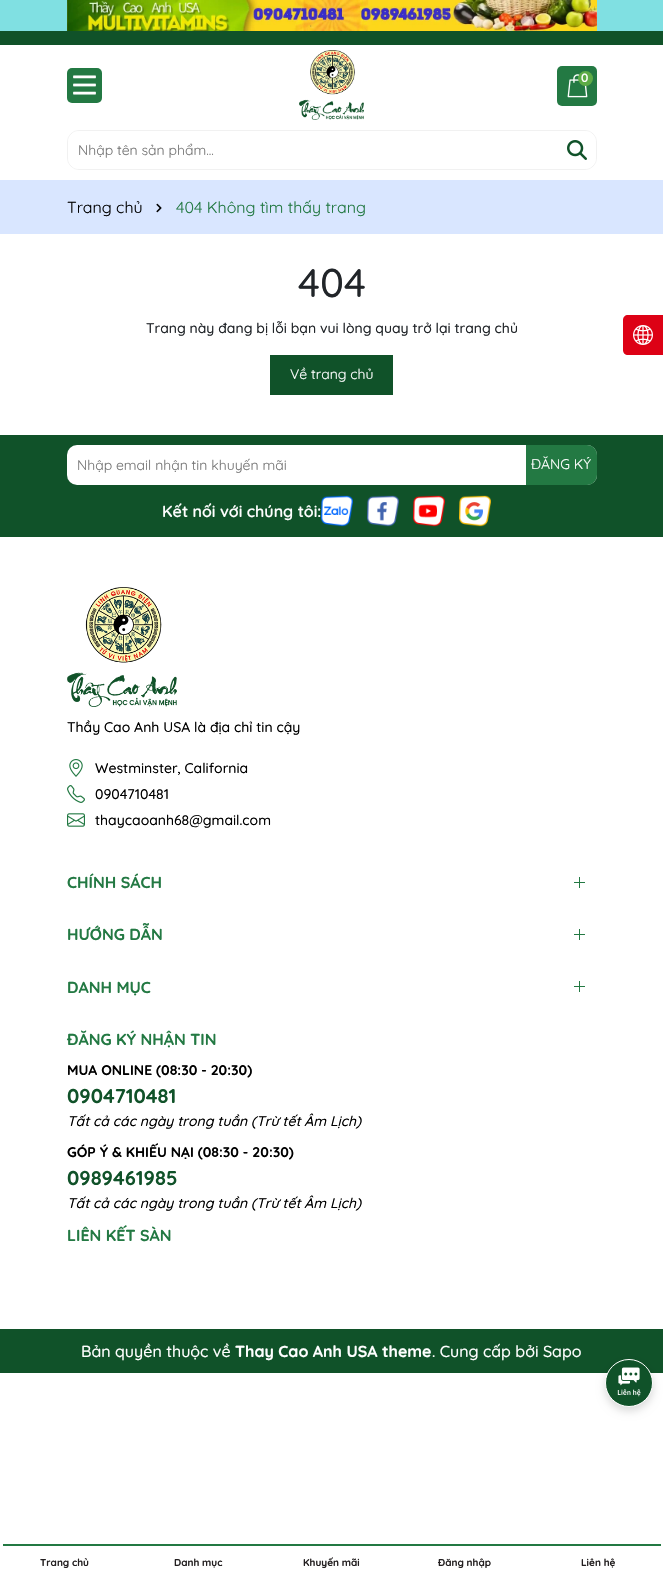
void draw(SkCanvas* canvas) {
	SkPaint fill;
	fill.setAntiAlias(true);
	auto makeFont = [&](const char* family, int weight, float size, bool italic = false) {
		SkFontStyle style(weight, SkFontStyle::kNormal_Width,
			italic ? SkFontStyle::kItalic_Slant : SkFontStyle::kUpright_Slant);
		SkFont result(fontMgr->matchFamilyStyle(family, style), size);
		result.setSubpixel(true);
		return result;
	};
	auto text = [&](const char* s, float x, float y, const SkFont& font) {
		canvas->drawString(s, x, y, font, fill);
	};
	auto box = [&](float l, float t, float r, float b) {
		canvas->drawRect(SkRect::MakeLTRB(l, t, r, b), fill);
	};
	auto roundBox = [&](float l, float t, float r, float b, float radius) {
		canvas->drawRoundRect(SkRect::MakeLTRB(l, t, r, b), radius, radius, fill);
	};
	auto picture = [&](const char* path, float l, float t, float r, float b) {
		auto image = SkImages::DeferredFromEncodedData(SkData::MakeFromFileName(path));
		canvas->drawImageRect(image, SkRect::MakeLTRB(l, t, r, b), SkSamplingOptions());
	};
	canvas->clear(0xFFFFFFFF);
	fill.setColor(0xFF80E0E2);
	box(0, 0, 663, 31);
	picture("image0.png", 67, 0, 597, 31);
	fill.setColor(0xFF105229);
	box(0, 31, 663, 45);
	fill.setColor(0xFF237943);
	roundBox(67, 68, 102, 103, 5);
	picture("image1.png", 73, 75, 96, 95);
	picture("image2.png", 299, 50, 364, 120);
	roundBox(557, 66, 597, 106, 5);
	picture("image3.png", 567, 74, 588, 98);
	fill.setColor(0xFF5DAC46);
	canvas->drawCircle(585.5f, 78.5f, 7.5f, fill);
	fill.setStyle(SkPaint::kStroke_Style);
	fill.setStrokeWidth(1);
	fill.setColor(0xFFF1F1F1);
	canvas->drawRoundRect(SkRect::MakeLTRB(67.5f, 130.5f, 596.5f, 169.5f), 11.5f, 11.5f, fill);
	fill.setStyle(SkPaint::kFill_Style);
	fill.setColor(0xFFFFFFFF);
	roundBox(68, 131, 596, 169, 11);
	picture("image4.png", 567, 140, 587, 160);
	fill.setColor(0xFFD9E6FF);
	box(0, 180, 663, 234);
	picture("image5.png", 156, 203, 162, 213);
	fill.setColor(0xFF105229);
	box(270, 355, 393, 395);
	fill.setColor(0xFFDD0115);
	canvas->drawPath(SkPathBuilder().moveTo(628, 315).lineTo(663, 315).lineTo(663, 355).lineTo(628, 355).cubicTo(625, 355, 623, 353, 623, 350).lineTo(623, 320).cubicTo(623, 317, 625, 315, 628, 315).close().detach(), fill);
	picture("image6.png", 633, 325, 653, 345);
	fill.setColor(0xFF105229);
	box(0, 435, 663, 537);
	fill.setColor(0xFFFFFFFF);
	roundBox(67, 445, 597, 485, 10);
	fill.setColor(0xFF237943);
	canvas->drawPath(SkPathBuilder().moveTo(526, 445).lineTo(587, 445).cubicTo(592.5f, 445, 597, 449.5f, 597, 455).lineTo(597, 475).cubicTo(597, 480.5f, 592.5f, 485, 587, 485).lineTo(526, 485).close().detach(), fill);
	picture("image7.png", 321, 495, 353, 527);
	picture("image8.png", 367, 495, 399, 527);
	picture("image9.png", 413, 495, 445, 527);
	picture("image10.png", 459, 495, 491, 527);
	picture("image11.png", 67, 587, 177, 707);
	picture("image12.png", 69, 759, 83, 777);
	picture("image13.png", 67, 785, 85, 803);
	picture("image14.png", 67, 813, 85, 827);
	box(579, 877, 580, 888);
	box(574, 882, 585, 883);
	box(579, 929, 580, 940);
	box(574, 934, 585, 935);
	box(579, 981, 580, 992);
	box(574, 986, 585, 987);
	fill.setColor(0xFF105229);
	box(0, 1329, 663, 1373);
	fill.setColor(0x26000000);
	fill.setMaskFilter(SkMaskFilter::MakeBlur(kNormal_SkBlurStyle, 4));
	canvas->drawRoundRect(SkRect::MakeLTRB(605, 1363, 653, 1411), 24, 24, fill);
	fill.setMaskFilter(nullptr);
	fill.setColor(0xFF105229);
	canvas->drawCircle(629, 1383, 23.5f, fill);
	fill.setStyle(SkPaint::kStroke_Style);
	fill.setColor(0xFFFFFFFF);
	canvas->drawCircle(629, 1383, 23.5f, fill);
	picture("image15.png", 617, 1367, 641, 1397);
	fill.setStyle(SkPaint::kFill_Style);
	fill.setColor(0xFF237943);
	box(3, 1544, 661, 1546);
	auto font1 = makeFont("Quicksand", 600, 12);
	fill.setColor(0xFFFFFFFF);
	text("0", 581, 82, font1);
	auto font2 = makeFont("Quicksand", 400, 14);
	fill.setColor(0xFF757575);
	text("Nhập tên sản phẩm...", 78, 155, font2);
	auto font3 = makeFont("Quicksand", 400, 16);
	fill.setColor(0xFF000000);
	text("Trang chủ", 67, 213, font3);
	fill.setColor(0xFF237943);
	text("404 Không tìm thấy trang", 176, 213, font3);
	auto font4 = makeFont("Quicksand", 500, 40);
	fill.setColor(0xFF212529);
	text("404", 298, 297, font4);
	auto font5 = makeFont("Quicksand", 500, 14);
	text("Trang này đang bị lỗi bạn vui lòng quay trở lại trang chủ", 146, 333, font5);
	fill.setColor(0xFFFFFFFF);
	text("Về trang chủ", 290, 379, font2);
	fill.setColor(0xFF757575);
	text("Nhập email nhận tin khuyến mãi", 77, 470, font2);
	fill.setColor(0xFFFFFFFF);
	text("ĐĂNG KÝ", 531, 469, font2);
	auto font6 = makeFont("Quicksand", 600, 16);
	text("Kết nối với chúng tôi:", 162, 517, font6);
	fill.setColor(0xFF000000);
	text("Thầy Cao Anh USA là địa chỉ tin cậy", 67, 732, font5);
	text("Westminster, California", 95, 773, font5);
	text("0904710481", 95, 799, font5);
	text("thaycaoanh68@gmail.com", 95, 825, font5);
	auto font7 = makeFont("Quicksand", 700, 16);
	fill.setColor(0xFF237943);
	text("CHÍNH SÁCH", 67, 888, font7);
	text("HƯỚNG DẪN", 67, 940, font7);
	text("DANH MỤC", 67, 993, font7);
	text("ĐĂNG KÝ NHẬN TIN", 67, 1045, font7);
	auto font8 = makeFont("Quicksand", 700, 14);
	fill.setColor(0xFF000000);
	text("MUA ONLINE (08:30 - 20:30)", 67, 1075, font8);
	auto font9 = makeFont("Quicksand", 700, 20);
	fill.setColor(0xFF105229);
	text("0904710481", 67, 1103, font9);
	auto font10 = makeFont("Quicksand", 500, 14, true);
	fill.setColor(0xFF000000);
	text("Tất cả các ngày trong tuần (Trừ tết Âm Lịch)", 67, 1126, font10);
	text("GÓP Ý & KHIẾU NẠI (08:30 - 20:30)", 67, 1157, font8);
	fill.setColor(0xFF105229);
	text("0989461985", 67, 1185, font9);
	fill.setColor(0xFF000000);
	text("Tất cả các ngày trong tuần (Trừ tết Âm Lịch)", 67, 1208, font10);
	fill.setColor(0xFF237943);
	text("LIÊN KẾT SÀN", 67, 1241, font7);
	auto font11 = makeFont("Quicksand", 500, 16);
	fill.setColor(0xFFFFFFFF);
	text("Bản quyền thuộc về", 81, 1357, font11);
	text("Thay Cao Anh USA theme", 235, 1357, font7);
	text(". Cung cấp bởi Sapo", 432, 1357, font11);
	auto font12 = makeFont("Quicksand", 700, 10);
	fill.setColor(0xFF231F20);
	text("Trang chủ", 40, 1566, font12);
	text("Danh mục", 174, 1566, font12);
	text("Khuyến mãi", 303, 1566, font12);
	text("Đăng nhập", 438, 1566, font12);
	text("Liên hệ", 581, 1566, font12);
}
